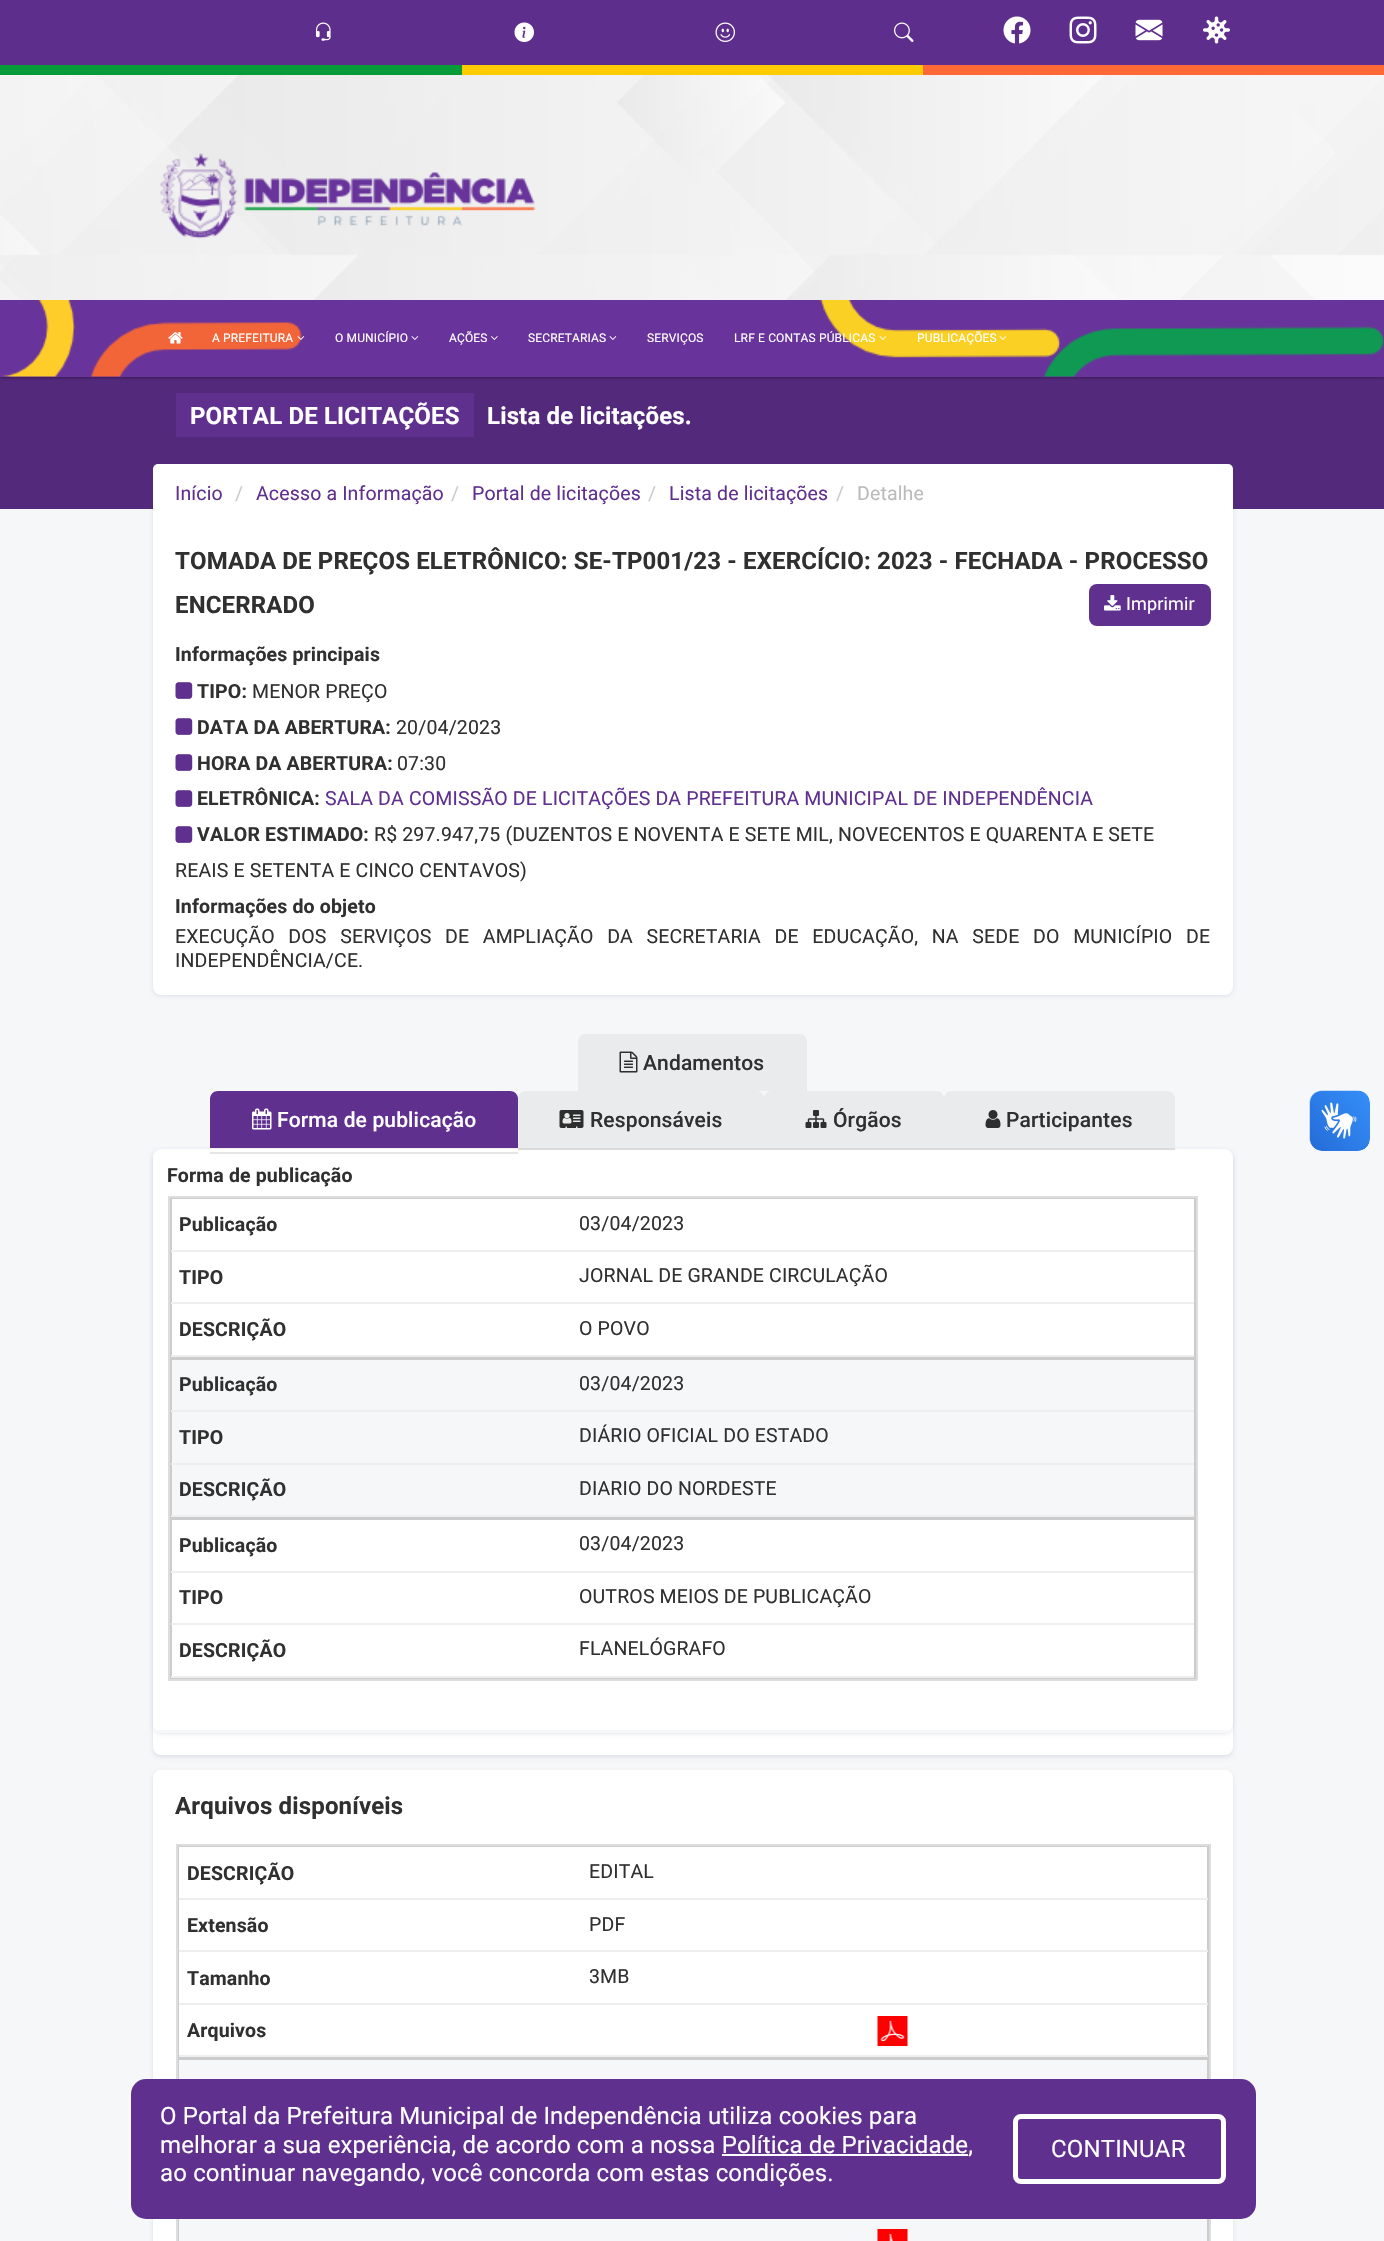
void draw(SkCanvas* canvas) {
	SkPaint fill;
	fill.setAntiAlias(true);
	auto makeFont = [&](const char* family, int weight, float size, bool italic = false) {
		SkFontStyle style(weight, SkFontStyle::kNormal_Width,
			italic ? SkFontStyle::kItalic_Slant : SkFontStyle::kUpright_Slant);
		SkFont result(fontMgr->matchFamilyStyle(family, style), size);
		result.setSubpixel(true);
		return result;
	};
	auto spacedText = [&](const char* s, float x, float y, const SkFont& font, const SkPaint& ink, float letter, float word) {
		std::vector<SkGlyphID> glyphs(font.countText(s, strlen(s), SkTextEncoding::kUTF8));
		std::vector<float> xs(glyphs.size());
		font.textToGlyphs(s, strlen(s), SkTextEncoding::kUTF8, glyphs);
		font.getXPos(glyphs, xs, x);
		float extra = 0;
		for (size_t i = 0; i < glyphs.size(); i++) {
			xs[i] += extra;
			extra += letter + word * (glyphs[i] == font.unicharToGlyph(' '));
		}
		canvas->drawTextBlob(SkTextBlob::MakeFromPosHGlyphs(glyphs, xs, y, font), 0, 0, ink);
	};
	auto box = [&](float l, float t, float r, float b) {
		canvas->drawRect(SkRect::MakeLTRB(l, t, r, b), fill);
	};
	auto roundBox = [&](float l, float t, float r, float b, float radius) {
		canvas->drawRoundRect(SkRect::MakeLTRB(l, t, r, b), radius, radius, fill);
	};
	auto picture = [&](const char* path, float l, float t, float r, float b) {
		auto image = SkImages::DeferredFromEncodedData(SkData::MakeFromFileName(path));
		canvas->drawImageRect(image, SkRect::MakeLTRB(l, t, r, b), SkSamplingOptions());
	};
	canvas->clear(0xFFF6F7F8);
	fill.setColor(0x17030047);
	fill.setMaskFilter(SkMaskFilter::MakeBlur(kNormal_SkBlurStyle, 2));
	canvas->drawRoundRect(SkRect::MakeLTRB(153, 465, 1233, 996), 8, 8, fill);
	fill.setMaskFilter(nullptr);
	fill.setColor(0xFFFFFFFF);
	roundBox(153, 464, 1233, 995, 8);
	fill.setColor(0xFF53297C);
	box(0, 377, 1384, 509);
	fill.setColor(0x4D000000);
	fill.setMaskFilter(SkMaskFilter::MakeBlur(kNormal_SkBlurStyle, 1.5f));
	canvas->drawRect(SkRect::MakeLTRB(0, 2, 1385, 378), fill);
	fill.setMaskFilter(nullptr);
	picture("image0.png", 0, 75, 1384, 300);
	fill.setColor(0xFF5E2E8C);
	box(0, 0, 1384, 65);
	picture("image1.png", 315, 22, 331, 41);
	picture("image2.png", 514, 22, 534, 42);
	picture("image3.png", 715, 22, 735, 42);
	picture("image4.png", 894, 22, 914, 42);
	picture("image5.png", 1003, 16, 1031, 44);
	picture("image6.png", 1069, 16, 1097, 44);
	picture("image7.png", 1135, 19, 1163, 41);
	picture("image8.png", 1203, 16, 1230, 44);
	fill.setColor(0xFF069A38);
	box(0, 65, 462, 75);
	fill.setColor(0xFFFFCC04);
	box(462, 65, 923, 75);
	fill.setColor(0xFFFF6837);
	box(923, 65, 1384, 75);
	picture("image9.png", 160, 153, 536, 239);
	fill.setColor(0xFF68339B);
	box(0, 300, 1384, 377);
	picture("image10.png", 2, 300, 1384, 377);
	picture("image11.png", 168, 332, 183, 344);
	picture("image12.png", 297, 336, 305, 340);
	picture("image13.png", 411, 336, 419, 340);
	picture("image14.png", 491, 336, 498, 340);
	picture("image13.png", 609, 336, 617, 340);
	picture("image15.png", 879, 336, 887, 340);
	picture("image15.png", 999, 336, 1007, 340);
	fill.setColor(0xFF60308F);
	box(176, 393, 474, 437);
	fill.setColor(0xFFFFFFFF);
	roundBox(153, 464, 1233, 524, 5);
	fill.setColor(0xFF60308F);
	roundBox(1089, 584, 1211, 626, 8);
	picture("image16.png", 1104, 595, 1121, 611);
	picture("image17.png", 175, 682, 193, 699);
	picture("image17.png", 175, 718, 193, 735);
	picture("image17.png", 175, 754, 193, 771);
	picture("image17.png", 175, 790, 193, 807);
	picture("image17.png", 175, 826, 193, 843);
	fill.setColor(0xFFEAEBEC);
	canvas->drawPath(SkPathBuilder().moveTo(586, 1034).lineTo(799, 1034).cubicTo(803.5f, 1034, 807, 1037.5f, 807, 1042).lineTo(807, 1091).lineTo(578, 1091).lineTo(578, 1042).cubicTo(578, 1037.5f, 581.5f, 1034, 586, 1034).close().detach(), fill);
	picture("image18.png", 619, 1051, 638, 1073);
	fill.setColor(0x17030047);
	fill.setMaskFilter(SkMaskFilter::MakeBlur(kNormal_SkBlurStyle, 2));
	canvas->drawRoundRect(SkRect::MakeLTRB(153, 1151, 1233, 1757), 8, 8, fill);
	fill.setMaskFilter(nullptr);
	fill.setColor(0xFFFFFFFF);
	roundBox(153, 1149, 1233, 1755, 8);
	fill.setColor(0x17030047);
	fill.setMaskFilter(SkMaskFilter::MakeBlur(kNormal_SkBlurStyle, 2));
	canvas->drawRoundRect(SkRect::MakeLTRB(153, 1151, 1233, 1734), 9, 9, fill);
	fill.setMaskFilter(nullptr);
	fill.setColor(0xFFFFFFFF);
	roundBox(153, 1149, 1233, 1733, 9);
	fill.setColor(0xFFE6E6E6);
	box(210, 1152, 518, 1154);
	fill.setColor(0xFF60308F);
	canvas->drawPath(SkPathBuilder().moveTo(218, 1091).lineTo(510, 1091).cubicTo(514.5f, 1091, 518, 1094.5f, 518, 1099).lineTo(518, 1148).lineTo(210, 1148).lineTo(210, 1099).cubicTo(210, 1094.5f, 213.5f, 1091, 218, 1091).close().detach(), fill);
	picture("image19.png", 252, 1108, 272, 1130);
	fill.setColor(0xFFDBDBDB);
	box(518, 1148, 1175, 1150);
	fill.setColor(0xFFEAEBEC);
	canvas->drawPath(SkPathBuilder().moveTo(526, 1091).lineTo(756, 1091).cubicTo(760.5f, 1091, 764, 1094.5f, 764, 1099).lineTo(764, 1148).lineTo(518, 1148).lineTo(518, 1099).cubicTo(518, 1094.5f, 521.5f, 1091, 526, 1091).close().detach(), fill);
	picture("image20.png", 559, 1110, 584, 1128);
	canvas->drawPath(SkPathBuilder().moveTo(772, 1091).lineTo(936, 1091).cubicTo(940.5f, 1091, 944, 1094.5f, 944, 1099).lineTo(944, 1148).lineTo(764, 1148).lineTo(764, 1099).cubicTo(764, 1094.5f, 767.5f, 1091, 772, 1091).close().detach(), fill);
	picture("image21.png", 805, 1110, 827, 1128);
	canvas->drawPath(SkPathBuilder().moveTo(952, 1091).lineTo(1167, 1091).cubicTo(1171.5f, 1091, 1175, 1094.5f, 1175, 1099).lineTo(1175, 1148).lineTo(944, 1148).lineTo(944, 1099).cubicTo(944, 1094.5f, 947.5f, 1091, 952, 1091).close().detach(), fill);
	picture("image22.png", 985, 1110, 1001, 1128);
	fill.setColor(0xFFF6F7F8);
	box(158, 1730, 1229, 1733);
	fill.setStyle(SkPaint::kStroke_Style);
	fill.setStrokeWidth(2);
	fill.setColor(0xFFCCCCCC);
	canvas->drawRect(SkRect::MakeLTRB(171, 1198, 1195, 1357), fill);
	fill.setStyle(SkPaint::kFill_Style);
	fill.setColor(0xFFDDDDDD);
	box(168, 1196, 1197, 1198);
	box(1196, 1196, 1198, 1680);
	box(168, 1679, 1197, 1681);
	box(168, 1196, 170, 1680);
	fill.setColor(0xFFEEEEEE);
	box(171, 1250, 1194, 1252);
	box(171, 1302, 1194, 1304);
	box(171, 1355, 1194, 1357);
	fill.setColor(0xFFF6F7F8);
	box(172, 1360, 1194, 1515);
	fill.setStyle(SkPaint::kStroke_Style);
	fill.setColor(0xFFCCCCCC);
	canvas->drawRect(SkRect::MakeLTRB(171, 1359, 1195, 1517), fill);
	fill.setStyle(SkPaint::kFill_Style);
	fill.setColor(0xFFEEEEEE);
	box(171, 1410, 1194, 1412);
	box(171, 1463, 1194, 1465);
	box(171, 1515, 1194, 1517);
	fill.setStyle(SkPaint::kStroke_Style);
	fill.setColor(0xFFCCCCCC);
	canvas->drawRect(SkRect::MakeLTRB(171, 1519, 1195, 1678), fill);
	fill.setStyle(SkPaint::kFill_Style);
	fill.setColor(0xFFEEEEEE);
	box(171, 1571, 1194, 1573);
	box(171, 1623, 1194, 1625);
	box(171, 1676, 1194, 1678);
	picture("image23.png", 1309, 1090, 1370, 1151);
	picture("image24.png", 1310, 1091, 1370, 1151);
	fill.setColor(0x17030047);
	fill.setMaskFilter(SkMaskFilter::MakeBlur(kNormal_SkBlurStyle, 2));
	canvas->drawRoundRect(SkRect::MakeLTRB(153, 1772, 1233, 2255), 8, 8, fill);
	fill.setMaskFilter(nullptr);
	fill.setColor(0xFFFFFFFF);
	roundBox(153, 1770, 1233, 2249, 8);
	fill.setStyle(SkPaint::kStroke_Style);
	fill.setColor(0xFFCCCCCC);
	canvas->drawRect(SkRect::MakeLTRB(178, 1846, 1208, 2057), fill);
	fill.setStyle(SkPaint::kFill_Style);
	fill.setColor(0xFFDDDDDD);
	box(176, 1844, 1211, 1846);
	box(1209, 1844, 1211, 2241);
	fill.setColor(0xFFF6F7F8);
	canvas->drawRect(SkRect::MakeLTRB(178, 2059, 1208, 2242), fill);
	fill.setStyle(SkPaint::kStroke_Style);
	fill.setColor(0xFFCCCCCC);
	canvas->drawRect(SkRect::MakeLTRB(178, 2059, 1208, 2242), fill);
	fill.setStyle(SkPaint::kFill_Style);
	fill.setColor(0xFFDDDDDD);
	box(176, 1844, 178, 2241);
	fill.setColor(0xFFEEEEEE);
	box(179, 1898, 1208, 1900);
	box(179, 1950, 1208, 1952);
	box(179, 2003, 1208, 2005);
	box(179, 2055, 1208, 2057);
	picture("image25.png", 877, 2016, 908, 2046);
	picture("image26.png", 877, 2229, 908, 2241);
	fill.setColor(0xFF60308F);
	roundBox(131, 2079, 1256, 2219, 15);
	fill.setColor(0xFFFFFFFF);
	box(722, 2154, 968, 2156);
	fill.setStyle(SkPaint::kStroke_Style);
	fill.setStrokeWidth(5);
	canvas->drawRoundRect(SkRect::MakeLTRB(1015.5f, 2116.5f, 1223.5f, 2181.5f), 5.5f, 5.5f, fill);
	auto font1 = makeFont("Roboto", 400, 12);
	fill.setStyle(SkPaint::kFill_Style);
	spacedText("A PREFEITURA", 212, 342, font1, fill, 0.15f, 0);
	spacedText("O MUNICÍPIO", 335, 342, font1, fill, 0.15f, 0);
	spacedText("AÇÕES", 449, 342, font1, fill, 0.15f, 0);
	spacedText("SECRETARIAS", 528, 342, font1, fill, 0.15f, 0);
	spacedText("SERVIÇOS", 647, 342, font1, fill, 0.15f, 0);
	spacedText("LRF E CONTAS PÚBLICAS", 734, 342, font1, fill, 0.15f, 0);
	spacedText("PUBLICAÇÕES", 917, 342, font1, fill, 0.15f, 0);
	auto font2 = makeFont("Roboto", 700, 24);
	spacedText("PORTAL DE LICITAÇÕES", 190, 424, font2, fill, 0.15f, 0);
	spacedText("Lista de licitações.", 487, 424, font2, fill, 0.15f, 0);
	auto font3 = makeFont("Roboto", 400, 19.5f);
	fill.setColor(0xFF60308F);
	spacedText("Início", 175, 500, font3, fill, 0.15f, 0);
	fill.setColor(0xFFCCCCCC);
	spacedText("/", 235, 500, font3, fill, 0.15f, 0);
	fill.setColor(0xFF60308F);
	spacedText("Acesso a Informação", 256, 500, font3, fill, 0.15f, 0);
	fill.setColor(0xFFCCCCCC);
	spacedText("/", 451, 500, font3, fill, 0.15f, 0);
	fill.setColor(0xFF60308F);
	spacedText("Portal de licitações", 472, 500, font3, fill, 0.15f, 0);
	fill.setColor(0xFFCCCCCC);
	spacedText("/", 648, 500, font3, fill, 0.15f, 0);
	fill.setColor(0xFF60308F);
	spacedText("Lista de licitações", 669, 500, font3, fill, 0.15f, 0);
	fill.setColor(0xFFCCCCCC);
	spacedText("/", 836, 500, font3, fill, 0.15f, 0);
	fill.setColor(0xFFBBBBBB);
	spacedText("Detalhe", 857, 500, font3, fill, 0.15f, 0);
	fill.setColor(0xFF303030);
	spacedText("TOMADA DE PREÇOS ELETRÔNICO: SE-TP001/23 - EXERCÍCIO: 2023 - FECHADA - PROCESSO", 175, 569, font2, fill, 0.15f, 0);
	spacedText("ENCERRADO", 175, 613, font2, fill, 0.15f, 0);
	auto font4 = makeFont("Roboto", 400, 18);
	fill.setColor(0xFFFFFFFF);
	spacedText("Imprimir", 1126, 610, font4, fill, 0.15f, 0);
	auto font5 = makeFont("Roboto", 700, 19.5f);
	fill.setColor(0xFF303030);
	spacedText("Informações principais", 175, 661, font5, fill, 0.15f, 0);
	spacedText("TIPO:", 197, 698, font5, fill, 0.15f, 0);
	spacedText("MENOR PREÇO", 252, 698, font3, fill, 0.15f, 0);
	spacedText("DATA DA ABERTURA:", 197, 734, font5, fill, 0.15f, 0);
	spacedText("20/04/2023", 396, 734, font3, fill, 0.15f, 0);
	spacedText("HORA DA ABERTURA:", 197, 770, font5, fill, 0.15f, 0);
	spacedText("07:30", 397, 770, font3, fill, 0.15f, 0);
	spacedText("ELETRÔNICA:", 197, 805, font5, fill, 0.15f, 0);
	fill.setColor(0xFF60308F);
	spacedText("SALA DA COMISSÃO DE LICITAÇÕES DA PREFEITURA MUNICIPAL DE INDEPENDÊNCIA", 325, 805, font3, fill, 0.15f, 0);
	fill.setColor(0xFF303030);
	spacedText("VALOR ESTIMADO:", 197, 841, font5, fill, 0.15f, 0);
	spacedText("R$ 297.947,75 (DUZENTOS E NOVENTA E SETE MIL, NOVECENTOS E QUARENTA E SETE", 374, 841, font3, fill, 0.15f, 0);
	spacedText("REAIS E SETENTA E CINCO CENTAVOS)", 175, 877, font3, fill, 0.15f, 0);
	spacedText("Informações do objeto", 175, 913, font5, fill, 0.15f, 0);
	spacedText("EXECUÇÃO DOS SERVIÇOS DE AMPLIAÇÃO DA SECRETARIA DE EDUCAÇÃO, NA SEDE DO MUNICÍPIO DE", 175, 943, font3, fill, 0.15f, 8.6f);
	spacedText("INDEPENDÊNCIA/CE.", 175, 967, font3, fill, 0.15f, 0);
	auto font6 = makeFont("Roboto", 500, 21);
	spacedText("Andamentos", 643, 1070, font6, fill, 0.15f, 0);
	fill.setColor(0xFFFFFFFF);
	spacedText("Forma de publicação", 277, 1127, font6, fill, 0.15f, 0);
	fill.setColor(0xFF303030);
	spacedText("Responsáveis", 590, 1127, font6, fill, 0.15f, 0);
	spacedText("Órgãos", 833, 1127, font6, fill, 0.15f, 0);
	spacedText("Participantes", 1006, 1127, font6, fill, 0.15f, 0);
	spacedText("Forma de publicação", 167, 1182, font5, fill, 0.15f, 0);
	spacedText("Publicação", 179, 1231, font5, fill, 0.15f, 0);
	spacedText("03/04/2023", 579, 1230, font3, fill, 0.15f, 0);
	spacedText("TIPO", 179, 1284, font5, fill, 0.15f, 0);
	spacedText("JORNAL DE GRANDE CIRCULAÇÃO", 579, 1282, font3, fill, 0.15f, 0);
	spacedText("DESCRIÇÃO", 179, 1336, font5, fill, 0.15f, 0);
	spacedText("O POVO", 579, 1335, font3, fill, 0.15f, 0);
	spacedText("Publicação", 179, 1391, font5, fill, 0.15f, 0);
	spacedText("03/04/2023", 579, 1390, font3, fill, 0.15f, 0);
	spacedText("TIPO", 179, 1444, font5, fill, 0.15f, 0);
	spacedText("DIÁRIO OFICIAL DO ESTADO", 579, 1442, font3, fill, 0.15f, 0);
	spacedText("DESCRIÇÃO", 179, 1496, font5, fill, 0.15f, 0);
	spacedText("DIARIO DO NORDESTE", 579, 1495, font3, fill, 0.15f, 0);
	spacedText("Publicação", 179, 1552, font5, fill, 0.15f, 0);
	spacedText("03/04/2023", 579, 1550, font3, fill, 0.15f, 0);
	spacedText("TIPO", 179, 1604, font5, fill, 0.15f, 0);
	spacedText("OUTROS MEIOS DE PUBLICAÇÃO", 579, 1603, font3, fill, 0.15f, 0);
	spacedText("DESCRIÇÃO", 179, 1657, font5, fill, 0.15f, 0);
	spacedText("FLANELÓGRAFO", 579, 1655, font3, fill, 0.15f, 0);
	spacedText("Arquivos disponíveis", 175, 1814, font2, fill, 0.15f, 0);
	spacedText("DESCRIÇÃO", 187, 1880, font5, fill, 0.15f, 0);
	spacedText("EDITAL", 589, 1878, font3, fill, 0.15f, 0);
	spacedText("Extensão", 187, 1932, font5, fill, 0.15f, 0);
	spacedText("PDF", 589, 1931, font3, fill, 0.15f, 0);
	spacedText("Tamanho", 187, 1985, font5, fill, 0.15f, 0);
	spacedText("3MB", 589, 1983, font3, fill, 0.15f, 0);
	spacedText("Arquivos", 187, 2037, font5, fill, 0.15f, 0);
	auto font7 = makeFont("Roboto", 400, 24);
	fill.setColor(0xFFFFFFFF);
	spacedText("O Portal da Prefeitura Municipal de Independência utiliza cookies para", 160, 2124, font7, fill, 0.15f, 0);
	spacedText("melhorar a sua experiência, de acordo com a nossa Política de Privacidade,", 160, 2153, font7, fill, 0.15f, 0);
	spacedText("ao continuar navegando, você concorda com estas condições.", 160, 2181, font7, fill, 0.15f, 0);
	spacedText("CONTINUAR", 1051, 2157, font7, fill, 0.15f, 0);
}
